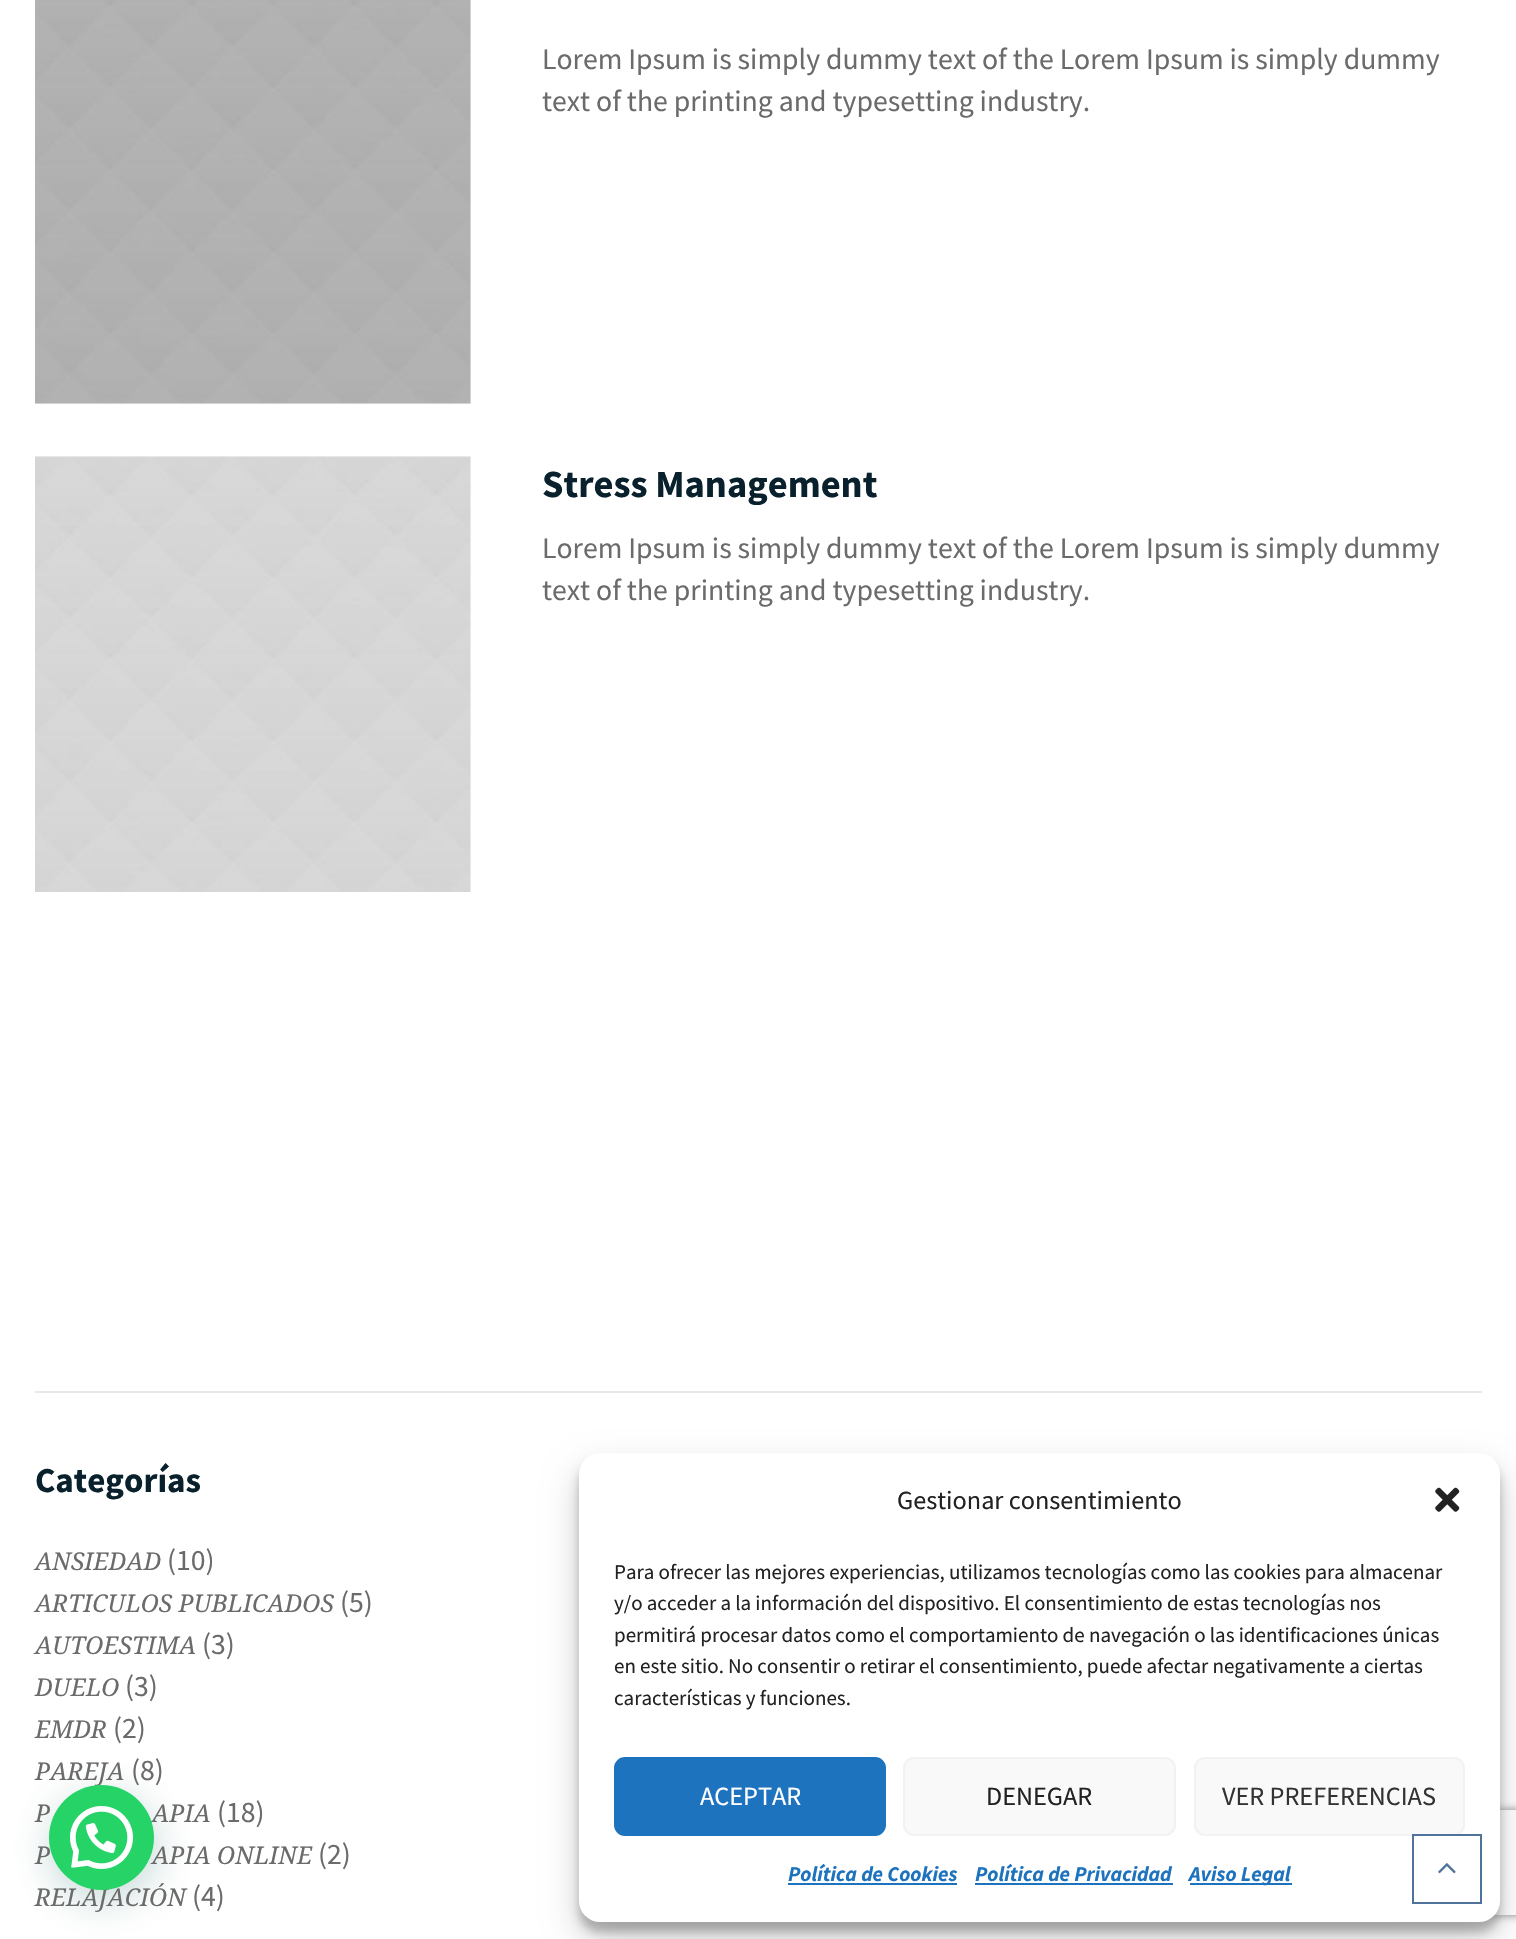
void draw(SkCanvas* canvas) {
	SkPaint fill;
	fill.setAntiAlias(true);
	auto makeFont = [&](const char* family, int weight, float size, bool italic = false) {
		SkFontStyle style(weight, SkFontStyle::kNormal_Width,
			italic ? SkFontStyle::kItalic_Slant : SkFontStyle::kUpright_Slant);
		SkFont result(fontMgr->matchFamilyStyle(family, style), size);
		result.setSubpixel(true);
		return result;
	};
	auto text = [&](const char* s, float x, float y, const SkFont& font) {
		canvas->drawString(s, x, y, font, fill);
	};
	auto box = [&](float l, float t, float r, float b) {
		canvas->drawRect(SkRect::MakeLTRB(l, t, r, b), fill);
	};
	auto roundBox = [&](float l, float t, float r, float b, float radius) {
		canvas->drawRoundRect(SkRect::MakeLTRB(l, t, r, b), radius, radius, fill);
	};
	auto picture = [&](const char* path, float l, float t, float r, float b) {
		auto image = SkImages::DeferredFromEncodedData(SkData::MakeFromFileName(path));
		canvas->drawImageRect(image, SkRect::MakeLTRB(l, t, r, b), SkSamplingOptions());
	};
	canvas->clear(0xFFFFFFFF);
	picture("image0.png", 35, 0, 471, 404);
	picture("image1.png", 35, 456, 471, 892);
	fill.setColor(0xFFE8E8E8);
	box(35, 1391, 1482, 1393);
	fill.setColor(0x3B000000);
	fill.setMaskFilter(SkMaskFilter::MakeBlur(kNormal_SkBlurStyle, 5));
	canvas->drawRoundRect(SkRect::MakeLTRB(579, 1463, 1500, 1932), 21, 21, fill);
	fill.setMaskFilter(nullptr);
	fill.setColor(0x30000000);
	fill.setMaskFilter(SkMaskFilter::MakeBlur(kNormal_SkBlurStyle, 17.5f));
	canvas->drawRoundRect(SkRect::MakeLTRB(579, 1470, 1500, 1939), 21, 21, fill);
	fill.setMaskFilter(nullptr);
	canvas->save();
	canvas->clipPath(SkPathBuilder(SkPathFillType::kEvenOdd).moveTo(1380, 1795).lineTo(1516, 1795).lineTo(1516, 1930).lineTo(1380, 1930).close().moveTo(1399, 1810).lineTo(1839, 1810).cubicTo(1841, 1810, 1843, 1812, 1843, 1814).lineTo(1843, 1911).cubicTo(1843, 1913, 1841, 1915, 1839, 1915).lineTo(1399, 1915).cubicTo(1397, 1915, 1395, 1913, 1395, 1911).lineTo(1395, 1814).cubicTo(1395, 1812, 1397, 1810, 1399, 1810).close().detach(), true);
	fill.setColor(0xFF808080);
	fill.setMaskFilter(SkMaskFilter::MakeBlur(kNormal_SkBlurStyle, 4.5f));
	canvas->drawRoundRect(SkRect::MakeLTRB(1395, 1810, 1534, 1915), 4, 4, fill);
	fill.setMaskFilter(nullptr);
	canvas->restore();
	fill.setColor(0xFFFFFFFF);
	roundBox(579, 1453, 1500, 1922, 21);
	fill.setColor(0xFFF9F9F9);
	canvas->drawRoundRect(SkRect::MakeLTRB(1195, 1758, 1464, 1835), 10, 10, fill);
	fill.setStyle(SkPaint::kStroke_Style);
	fill.setStrokeWidth(2);
	fill.setColor(0xFFF2F2F2);
	canvas->drawRoundRect(SkRect::MakeLTRB(1195, 1758, 1464, 1835), 10, 10, fill);
	fill.setColor(0xFF4F739B);
	canvas->drawRect(SkRect::MakeLTRB(1413, 1835, 1481, 1903), fill);
	picture("image2.png", 1438, 1863, 1456, 1874);
	fill.setStyle(SkPaint::kFill_Style);
	fill.setColor(0x3D075E54);
	fill.setMaskFilter(SkMaskFilter::MakeBlur(kNormal_SkBlurStyle, 21));
	canvas->drawRoundRect(SkRect::MakeLTRB(51, 1796, 156, 1901), 52.5f, 52.5f, fill);
	fill.setMaskFilter(nullptr);
	picture("image4.png", 1435, 1487, 1460, 1512);
	fill.setColor(0xFF1E73BE);
	canvas->drawRoundRect(SkRect::MakeLTRB(615, 1758, 885, 1835), 10, 10, fill);
	fill.setStyle(SkPaint::kStroke_Style);
	canvas->drawRoundRect(SkRect::MakeLTRB(615, 1758, 885, 1835), 10, 10, fill);
	fill.setStyle(SkPaint::kFill_Style);
	fill.setColor(0xFFF9F9F9);
	canvas->drawRoundRect(SkRect::MakeLTRB(904, 1758, 1175, 1835), 10, 10, fill);
	fill.setStyle(SkPaint::kStroke_Style);
	fill.setColor(0xFFF2F2F2);
	canvas->drawRoundRect(SkRect::MakeLTRB(904, 1758, 1175, 1835), 10, 10, fill);
	fill.setStyle(SkPaint::kFill_Style);
	fill.setColor(0xFF1E73BE);
	box(788, 1883, 957, 1885);
	box(975, 1883, 1173, 1885);
	box(1190, 1883, 1292, 1885);
	auto font1 = makeFont("Source Sans Pro", 400, 29.75f);
	fill.setColor(0xFF6B6B6B);
	text("Lorem Ipsum is simply dummy text of the Lorem Ipsum is simply dummy", 542, 69, font1);
	text("text of the printing and typesetting industry.", 542, 111, font1);
	auto font2 = makeFont("Source Sans Pro", 700, 38.5f);
	fill.setColor(0xFF08212C);
	text("Stress Management", 542, 497, font2);
	fill.setColor(0xFF6B6B6B);
	text("Lorem Ipsum is simply dummy text of the Lorem Ipsum is simply dummy", 542, 558, font1);
	text("text of the printing and typesetting industry.", 542, 600, font1);
	auto font3 = makeFont("Source Sans Pro", 700, 35);
	fill.setColor(0xFF08212C);
	text("Categorías", 35, 1492, font3);
	auto font4 = makeFont("Droid Serif", 400, 24.5f, true);
	fill.setColor(0xFF6B6B6B);
	text("ANSIEDAD", 35, 1570, font4);
	text("(10)", 167, 1570, font1);
	text("ARTICULOS PUBLICADOS", 35, 1612, font4);
	text("(5)", 340, 1612, font1);
	text("AUTOESTIMA", 35, 1654, font4);
	text("(3)", 202, 1654, font1);
	text("DUELO", 35, 1696, font4);
	text("(3)", 125, 1696, font1);
	text("EMDR", 35, 1738, font4);
	text("(2)", 113, 1738, font1);
	text("PAREJA", 35, 1780, font4);
	text("(8)", 131, 1780, font1);
	text("P", 35, 1822, font4);
	text("APIA", 152, 1822, font4);
	text("(18)", 217, 1822, font1);
	text("P", 35, 1864, font4);
	text("APIA ONLINE", 152, 1864, font4);
	text("(2)", 318, 1864, font1);
	text("RELAJACIÓN", 35, 1906, font4);
	text("(4)", 192, 1906, font1);
	fill.setColor(0xFF25D366);
	canvas->drawCircle(101.5f, 1837.5f, 52.5f, fill);
	picture("image3.png", 70, 1806, 133, 1869);
	auto font5 = makeFont("Source Sans Pro", 400, 26.25f);
	fill.setColor(0xFF222222);
	text("Gestionar consentimiento", 897, 1509, font5);
	auto font6 = makeFont("Source Sans Pro", 400, 21);
	text("Para ofrecer las mejores experiencias, utilizamos tecnologías como las cookies para almacenar", 614, 1579, font6);
	text("y/o acceder a la información del dispositivo. El consentimiento de estas tecnologías nos", 614, 1610, font6);
	text("permitirá procesar datos como el comportamiento de navegación o las identificaciones únicas", 614, 1642, font6);
	text("en este sitio. No consentir o retirar el consentimiento, puede afectar negativamente a ciertas", 614, 1673, font6);
	text("características y funciones.", 614, 1705, font6);
	fill.setColor(0xFFFFFFFF);
	text("ACEPTAR", 700, 1805, font5);
	fill.setColor(0xFF222222);
	text("DENEGAR", 986, 1805, font5);
	fill.setColor(0xFF333333);
	text("VER PREFERENCIAS", 1222, 1805, font5);
	auto font7 = makeFont("Source Sans Pro", 700, 21, true);
	fill.setColor(0xFF1E73BE);
	text("Política de Cookies", 788, 1881, font7);
	text("Política de Privacidad", 975, 1881, font7);
	text("Aviso Legal", 1189, 1881, font7);
}
